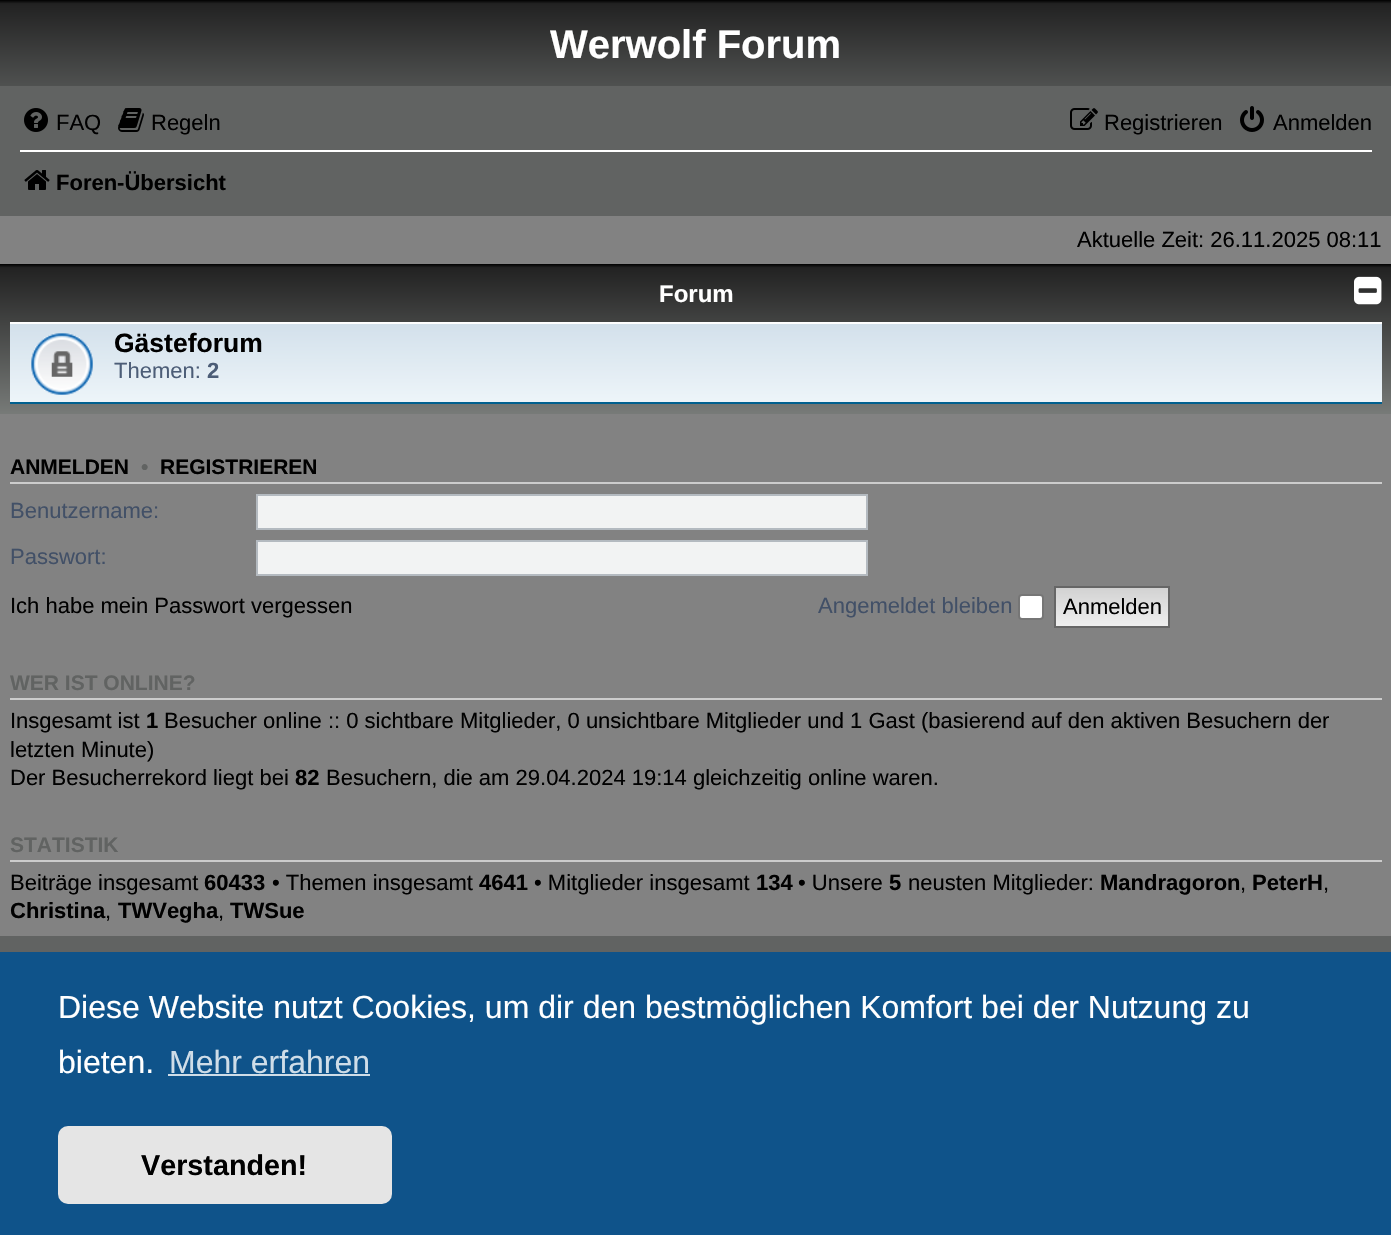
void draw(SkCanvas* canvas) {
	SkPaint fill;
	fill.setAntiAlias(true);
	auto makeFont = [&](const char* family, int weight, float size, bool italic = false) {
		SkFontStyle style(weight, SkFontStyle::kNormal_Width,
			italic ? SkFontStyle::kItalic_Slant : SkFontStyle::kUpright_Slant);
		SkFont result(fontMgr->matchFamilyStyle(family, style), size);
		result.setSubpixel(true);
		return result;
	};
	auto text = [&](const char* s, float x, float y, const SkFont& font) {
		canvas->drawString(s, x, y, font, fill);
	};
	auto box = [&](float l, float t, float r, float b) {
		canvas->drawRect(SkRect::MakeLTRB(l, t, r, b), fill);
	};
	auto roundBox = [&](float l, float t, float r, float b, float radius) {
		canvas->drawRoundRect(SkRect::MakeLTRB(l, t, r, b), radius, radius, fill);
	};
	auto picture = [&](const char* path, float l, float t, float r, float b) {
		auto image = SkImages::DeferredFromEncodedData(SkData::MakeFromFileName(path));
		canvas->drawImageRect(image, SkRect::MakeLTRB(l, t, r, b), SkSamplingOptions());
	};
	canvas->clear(0xFF828282);
	{
		const SkColor colors[] = {0xFF000000, 0xFF222222, 0xFF858987};
		const float stops[] = {0, 0.02f, 1};
		const SkPoint ends[] = {{696, 0}, {696, 184}};
		fill.setShader(SkGradientShader::MakeLinear(ends, colors, stops, 3, SkTileMode::kClamp));
		fill.setAlpha(255);
	}
	box(0, 0, 1391, 86);
	fill.setShader(nullptr);
	fill.setColor(0xFF616362);
	box(0, 86, 1391, 216);
	picture("image0.png", 24, 108, 48, 132);
	picture("image1.png", 118, 108, 144, 132);
	picture("image2.png", 1070, 108, 1098, 130);
	picture("image3.png", 1240, 106, 1264, 132);
	fill.setColor(0xFFFFFFFF);
	box(20, 150, 1372, 152);
	picture("image4.png", 24, 170, 50, 190);
	{
		const SkColor colors[] = {0xFF000000, 0xFF222222, 0xFF8B8F8C};
		const float stops[] = {0, 0.02f, 1};
		const SkPoint ends[] = {{696, 264}, {696, 448}};
		fill.setShader(SkGradientShader::MakeLinear(ends, colors, stops, 3, SkTileMode::kClamp));
		fill.setAlpha(255);
	}
	box(0, 264, 1391, 414);
	picture("image5.png", 1354, 276, 1382, 305);
	{
		const SkColor colors[] = {0xFFD2E0EB, 0xFFEEF5F9};
		const float stops[] = {0, 1};
		const SkPoint ends[] = {{696, 322}, {696, 404}};
		fill.setShader(SkGradientShader::MakeLinear(ends, colors, stops, 2, SkTileMode::kClamp));
		fill.setAlpha(255);
	}
	box(10, 324, 1382, 402);
	fill.setShader(nullptr);
	fill.setColor(0xFFFFFFFF);
	box(10, 322, 1382, 324);
	fill.setColor(0xFF00608F);
	box(10, 402, 1382, 404);
	picture("image6.png", 31, 333, 93, 395);
	fill.setColor(0xFFCCCCCC);
	box(10, 482, 1382, 484);
	fill.setColor(0xFFF2F3F3);
	canvas->drawRect(SkRect::MakeLTRB(257, 495, 867, 529), fill);
	fill.setStyle(SkPaint::kStroke_Style);
	fill.setStrokeWidth(2);
	fill.setColor(0xFFB4BAC0);
	canvas->drawRect(SkRect::MakeLTRB(257, 495, 867, 529), fill);
	fill.setStyle(SkPaint::kFill_Style);
	fill.setColor(0xFFF2F3F3);
	canvas->drawRect(SkRect::MakeLTRB(257, 541, 867, 575), fill);
	fill.setStyle(SkPaint::kStroke_Style);
	fill.setColor(0xFFB4BAC0);
	canvas->drawRect(SkRect::MakeLTRB(257, 541, 867, 575), fill);
	fill.setStyle(SkPaint::kFill_Style);
	fill.setColor(0xFFFFFFFF);
	canvas->drawRoundRect(SkRect::MakeLTRB(1019, 595, 1043, 619), 3, 3, fill);
	fill.setStyle(SkPaint::kStroke_Style);
	fill.setColor(0xFF767676);
	canvas->drawRoundRect(SkRect::MakeLTRB(1019, 595, 1043, 619), 3, 3, fill);
	fill.setStyle(SkPaint::kFill_Style);
	{
		const SkColor colors[] = {0xFFD2D2D2, 0xFFEFEFEF};
		const float stops[] = {0, 1};
		const SkPoint ends[] = {{1112, 588}, {1112, 626}};
		fill.setShader(SkGradientShader::MakeLinear(ends, colors, stops, 2, SkTileMode::kClamp));
		fill.setAlpha(255);
	}
	box(1056, 588, 1168, 626);
	fill.setStyle(SkPaint::kStroke_Style);
	fill.setShader(nullptr);
	fill.setColor(0xFF666666);
	canvas->drawRect(SkRect::MakeLTRB(1055, 587, 1169, 627), fill);
	fill.setStyle(SkPaint::kFill_Style);
	fill.setColor(0xFFCCCCCC);
	box(10, 698, 1382, 700);
	box(10, 860, 1382, 862);
	fill.setColor(0xFF616362);
	box(0, 936, 1391, 952);
	fill.setColor(0xFF0F538A);
	box(0, 952, 1391, 1235);
	fill.setColor(0xFFCFDDE8);
	box(168, 1074, 370, 1076);
	fill.setColor(0xFFE5E5E5);
	roundBox(58, 1126, 392, 1204, 10);
	auto font1 = makeFont("Liberation Sans", 700, 40);
	fill.setColor(0xFFFFFFFF);
	text("Werwolf Forum", 550, 58, font1);
	auto font2 = makeFont("Liberation Sans", 400, 22);
	fill.setColor(0xFF000000);
	text("FAQ", 56, 130, font2);
	text("Regeln", 151, 130, font2);
	text("Registrieren", 1104, 130, font2);
	text("Anmelden", 1273, 130, font2);
	auto font3 = makeFont("Liberation Sans", 700, 22);
	text("Foren-Übersicht", 56, 190, font3);
	text("Aktuelle Zeit: 26.11.2025 08:11", 1077, 247, font2);
	auto font4 = makeFont("Liberation Sans", 700, 24);
	fill.setColor(0xFFFFFFFF);
	text("Forum", 659, 302, font4);
	auto font5 = makeFont("Liberation Sans", 700, 26.5f);
	fill.setColor(0xFF000000);
	text("Gästeforum", 114, 352, font5);
	fill.setColor(0xFF4C5D77);
	text("Themen:", 114, 378, font2);
	text("2", 207, 378, font3);
	auto font6 = makeFont("Liberation Sans", 700, 21);
	fill.setColor(0xFF000000);
	text("ANMELDEN", 10, 474, font6);
	fill.setColor(0xFF616362);
	text("•", 141, 474, font6);
	fill.setColor(0xFF000000);
	text("REGISTRIEREN", 160, 474, font6);
	fill.setColor(0xFF425067);
	text("Benutzername:", 10, 518, font2);
	text("Passwort:", 10, 564, font2);
	fill.setColor(0xFF000000);
	text("Ich habe mein Passwort vergessen", 10, 613, font2);
	fill.setColor(0xFF425067);
	text("Angemeldet bleiben", 818, 613, font2);
	fill.setColor(0xFF000000);
	text("Anmelden", 1063, 614, font2);
	fill.setColor(0xFF616362);
	text("WER IST ONLINE?", 10, 690, font6);
	fill.setColor(0xFF000000);
	text("Insgesamt ist", 10, 728, font2);
	text("1", 146, 728, font3);
	text("Besucher online :: 0 sichtbare Mitglieder, 0 unsichtbare Mitglieder und 1 Gast (basierend auf den aktiven Besuchern der", 164, 728, font2);
	text("letzten Minute)", 10, 757, font2);
	text("Der Besucherrekord liegt bei", 10, 785, font2);
	text("82", 295, 785, font3);
	text("Besuchern, die am 29.04.2024 19:14 gleichzeitig online waren.", 326, 785, font2);
	fill.setColor(0xFF616362);
	text("STATISTIK", 10, 852, font6);
	fill.setColor(0xFF000000);
	text("Beiträge insgesamt", 10, 890, font2);
	text("60433", 204, 890, font3);
	text("• Themen insgesamt", 272, 890, font2);
	text("4641", 479, 890, font3);
	text("• Mitglieder insgesamt", 534, 890, font2);
	text("134", 756, 890, font3);
	text("• Unsere", 798, 890, font2);
	text("5", 889, 890, font3);
	text("neusten Mitglieder:", 908, 890, font2);
	text("Mandragoron", 1100, 890, font3);
	text(",", 1240, 890, font2);
	text("PeterH", 1252, 890, font3);
	text(",", 1323, 890, font2);
	text("Christina", 10, 918, font3);
	text(",", 105, 918, font2);
	text("TWVegha", 118, 918, font3);
	text(",", 218, 918, font2);
	text("TWSue", 230, 918, font3);
	auto font7 = makeFont("Liberation Sans", 400, 32);
	fill.setColor(0xFFFFFFFF);
	text("Diese Website nutzt Cookies, um dir den bestmöglichen Komfort bei der Nutzung zu", 58, 1018, font7);
	text("bieten.", 58, 1073, font7);
	fill.setColor(0xFFCFDDE8);
	text("Mehr erfahren", 169, 1073, font7);
	auto font8 = makeFont("Liberation Sans", 700, 28.75f);
	fill.setColor(0xFF000000);
	text("Verstanden!", 141, 1175, font8);
}
